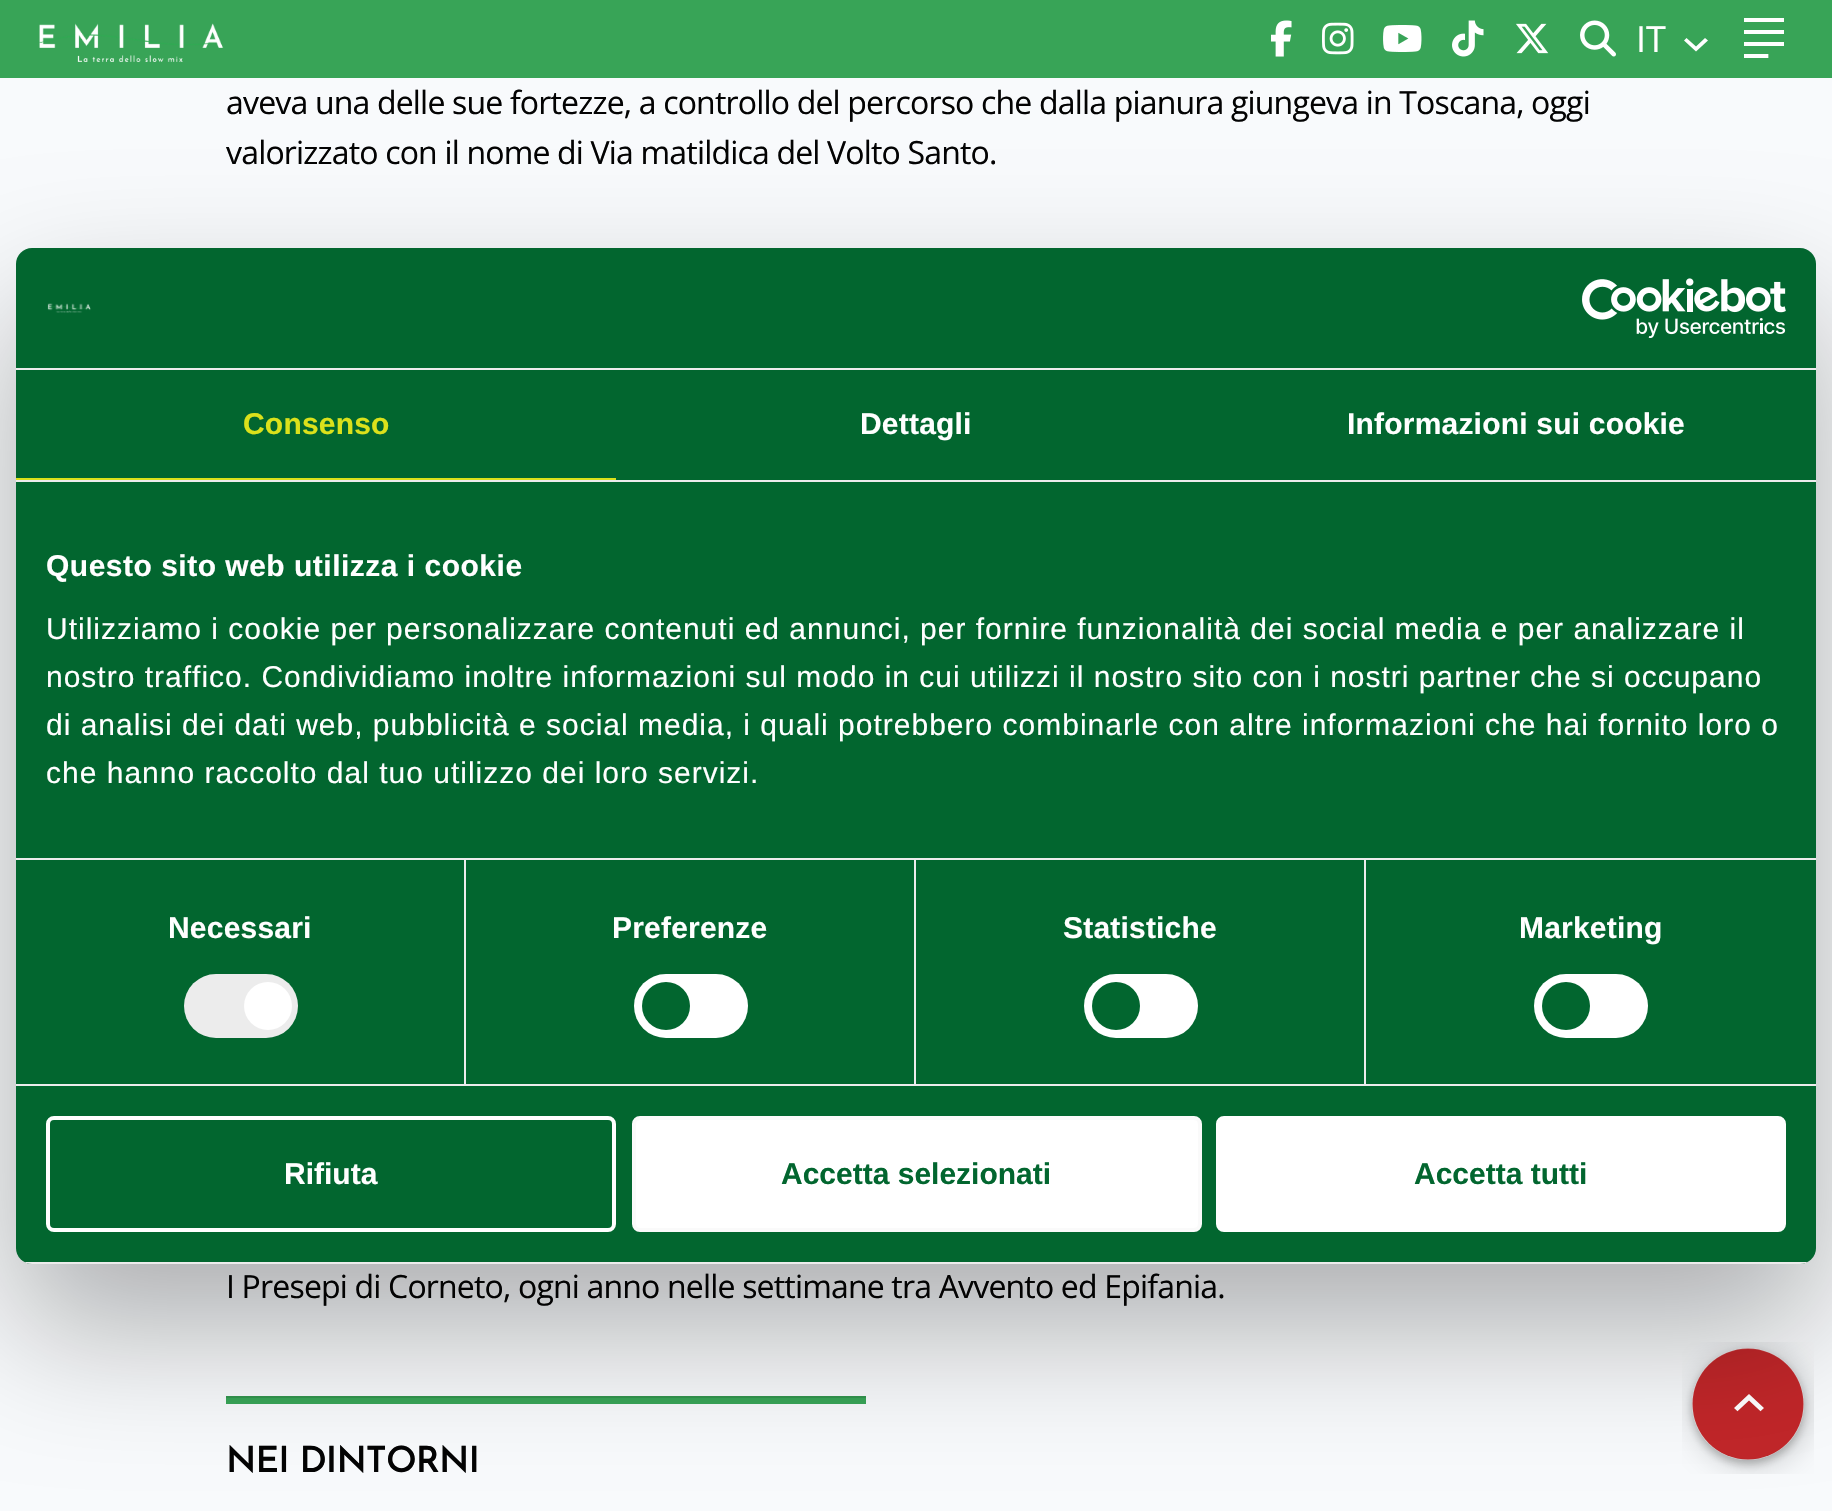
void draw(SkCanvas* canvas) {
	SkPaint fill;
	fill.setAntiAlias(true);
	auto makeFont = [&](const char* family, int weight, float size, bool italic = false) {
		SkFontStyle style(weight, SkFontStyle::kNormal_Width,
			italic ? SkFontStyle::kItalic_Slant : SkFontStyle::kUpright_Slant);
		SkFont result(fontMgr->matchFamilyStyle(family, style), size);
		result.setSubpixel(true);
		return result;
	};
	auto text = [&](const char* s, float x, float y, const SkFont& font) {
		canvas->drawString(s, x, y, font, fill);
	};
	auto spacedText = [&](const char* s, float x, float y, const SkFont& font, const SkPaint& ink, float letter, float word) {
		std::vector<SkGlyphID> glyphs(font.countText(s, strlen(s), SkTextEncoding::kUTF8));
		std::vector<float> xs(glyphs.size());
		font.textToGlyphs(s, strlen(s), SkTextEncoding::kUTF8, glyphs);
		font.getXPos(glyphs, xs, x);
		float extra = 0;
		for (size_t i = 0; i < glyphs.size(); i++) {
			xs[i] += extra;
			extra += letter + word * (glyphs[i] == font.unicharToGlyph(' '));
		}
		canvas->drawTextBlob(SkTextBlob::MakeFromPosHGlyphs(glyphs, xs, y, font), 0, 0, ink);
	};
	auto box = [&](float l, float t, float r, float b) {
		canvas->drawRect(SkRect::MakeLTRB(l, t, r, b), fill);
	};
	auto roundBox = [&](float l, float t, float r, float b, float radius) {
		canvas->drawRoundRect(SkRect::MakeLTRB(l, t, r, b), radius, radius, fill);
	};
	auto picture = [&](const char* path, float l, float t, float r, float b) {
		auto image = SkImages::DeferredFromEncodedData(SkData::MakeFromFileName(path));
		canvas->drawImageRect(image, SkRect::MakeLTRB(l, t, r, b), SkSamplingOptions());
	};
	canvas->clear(0xFFF8FAFC);
	fill.setColor(0xFF38A457);
	box(0, 0, 1832, 78);
	picture("image0.png", 39, 23, 224, 62);
	picture("image1.png", 1271, 20, 1292, 57);
	picture("image2.png", 1322, 22, 1354, 55);
	picture("image3.png", 1383, 25, 1422, 52);
	picture("image4.png", 1452, 20, 1484, 57);
	picture("image5.png", 1516, 23, 1549, 54);
	picture("image6.png", 1580, 20, 1616, 57);
	fill.setColor(0xFFFFFFFF);
	canvas->drawPath(SkPathBuilder(SkPathFillType::kEvenOdd).moveTo(1705, 38).lineTo(1696, 46.5f).lineTo(1686.5f, 38).lineTo(1684, 40.5f).lineTo(1696, 51.5f).lineTo(1708, 40.5f).close().detach(), fill);
	picture("image7.png", 1744, 18, 1784, 58);
	fill.setColor(0xFF38A457);
	box(226, 1398, 866, 1404);
	fill.setColor(0xFF32944E);
	box(226, 1396, 866, 1398);
	picture("image10.png", 1682, 1342, 1814, 1474);
	fill.setColor(0x4D000000);
	fill.setMaskFilter(SkMaskFilter::MakeBlur(kNormal_SkBlurStyle, 68));
	canvas->drawRoundRect(SkRect::MakeLTRB(16, 312, 1816, 1328), 16, 16, fill);
	fill.setMaskFilter(nullptr);
	fill.setColor(0xFF02662F);
	roundBox(16, 248, 1816, 1264, 16);
	fill.setColor(0xFFECECEC);
	box(16, 368, 1816, 370);
	picture("image8.png", 47, 303, 91, 313);
	picture("image9.png", 1582, 278, 1786, 338);
	box(16, 480, 1816, 482);
	fill.setColor(0xFFDBE11B);
	box(16, 478, 616, 480);
	fill.setColor(0xFFECECEC);
	box(16, 858, 1816, 860);
	box(16, 1084, 1816, 1086);
	box(464, 860, 466, 1084);
	roundBox(184, 974, 298, 1038, 32);
	fill.setColor(0xFFFFFFFF);
	canvas->drawCircle(268, 1006, 24, fill);
	fill.setColor(0xFFECECEC);
	box(914, 860, 916, 1084);
	fill.setColor(0xFFFFFFFF);
	roundBox(634, 974, 748, 1038, 32);
	fill.setColor(0xFF02662F);
	canvas->drawCircle(666, 1006, 24, fill);
	fill.setColor(0xFFECECEC);
	box(1364, 860, 1366, 1084);
	fill.setColor(0xFFFFFFFF);
	roundBox(1084, 974, 1198, 1038, 32);
	fill.setColor(0xFF02662F);
	canvas->drawCircle(1116, 1006, 24, fill);
	fill.setColor(0xFFFFFFFF);
	roundBox(1534, 974, 1648, 1038, 32);
	fill.setColor(0xFF02662F);
	canvas->drawCircle(1566, 1006, 24, fill);
	canvas->save();
	canvas->clipPath(SkPathBuilder().moveTo(32, 248).lineTo(1800, 248).cubicTo(1809, 248, 1816, 255, 1816, 264).lineTo(1816, 1248).cubicTo(1816, 1257, 1809, 1264, 1800, 1264).lineTo(32, 1264).cubicTo(23, 1264, 16, 1257, 16, 1248).lineTo(16, 264).cubicTo(16, 255, 23, 248, 32, 248).close().detach(), true);
	fill.setColor(0xFFECECEC);
	box(16, 1262, 1816, 1264);
	canvas->restore();
	fill.setStyle(SkPaint::kStroke_Style);
	fill.setStrokeWidth(4);
	fill.setColor(0xFFFFFFFF);
	canvas->drawRoundRect(SkRect::MakeLTRB(48, 1118, 614, 1230), 6, 6, fill);
	fill.setStyle(SkPaint::kFill_Style);
	canvas->drawRoundRect(SkRect::MakeLTRB(634, 1118, 1200, 1230), 6, 6, fill);
	fill.setStyle(SkPaint::kStroke_Style);
	fill.setColor(0xFFFAFAFA);
	canvas->drawRoundRect(SkRect::MakeLTRB(634, 1118, 1200, 1230), 6, 6, fill);
	fill.setStyle(SkPaint::kFill_Style);
	fill.setColor(0xFFFFFFFF);
	canvas->drawRoundRect(SkRect::MakeLTRB(1218, 1118, 1784, 1230), 6, 6, fill);
	fill.setStyle(SkPaint::kStroke_Style);
	canvas->drawRoundRect(SkRect::MakeLTRB(1218, 1118, 1784, 1230), 6, 6, fill);
	auto font1 = makeFont("Open Sans", 400, 36);
	fill.setStyle(SkPaint::kFill_Style);
	text("IT", 1636, 52, font1);
	auto font2 = makeFont("Open Sans", 400, 32);
	fill.setColor(0xFF030303);
	spacedText("aveva una delle sue fortezze, a controllo del percorso che dalla pianura giungeva in Toscana, oggi", 226, 114, font2, fill, -0.82f, 0);
	spacedText("valorizzato con il nome di Via matildica del Volto Santo.", 226, 164, font2, fill, -0.82f, 0);
	spacedText("I Presepi di Corneto, ogni anno nelle settimane tra Avvento ed Epifania.", 226, 1298, font2, fill, -0.82f, 0);
	auto font3 = makeFont("Josefin Sans", 600, 36);
	spacedText("NEI DINTORNI", 226, 1472, font3, fill, -0.9f, 0);
	auto font4 = makeFont("Liberation Sans", 700, 30);
	fill.setColor(0xFFDBE11B);
	spacedText("Consenso", 243, 434, font4, fill, 0.2f, 0);
	fill.setColor(0xFFFFFFFF);
	spacedText("Dettagli", 860, 434, font4, fill, 0.2f, 0);
	spacedText("Informazioni sui cookie", 1347, 434, font4, fill, 0.2f, 0);
	spacedText("Questo sito web utilizza i cookie", 46, 576, font4, fill, 0.5f, 0);
	auto font5 = makeFont("Liberation Sans", 400, 30);
	spacedText("Utilizziamo i cookie per personalizzare contenuti ed annunci, per fornire funzionalità dei social media e per analizzare il", 46, 639, font5, fill, 1, 0);
	spacedText("nostro traffico. Condividiamo inoltre informazioni sul modo in cui utilizzi il nostro sito con i nostri partner che si occupano", 46, 687, font5, fill, 1, 0);
	spacedText("di analisi dei dati web, pubblicità e social media, i quali potrebbero combinarle con altre informazioni che hai fornito loro o", 46, 735, font5, fill, 1, 0);
	spacedText("che hanno raccolto dal tuo utilizzo dei loro servizi.", 46, 783, font5, fill, 1, 0);
	spacedText("Necessari", 168, 938, font4, fill, 0.2f, 0);
	spacedText("Preferenze", 612, 938, font4, fill, 0.2f, 0);
	spacedText("Statistiche", 1063, 938, font4, fill, 0.2f, 0);
	spacedText("Marketing", 1519, 938, font4, fill, 0.2f, 0);
	text("Rifiuta", 284, 1184, font4);
	fill.setColor(0xFF02662F);
	text("Accetta selezionati", 781, 1184, font4);
	text("Accetta tutti", 1414, 1184, font4);
}
